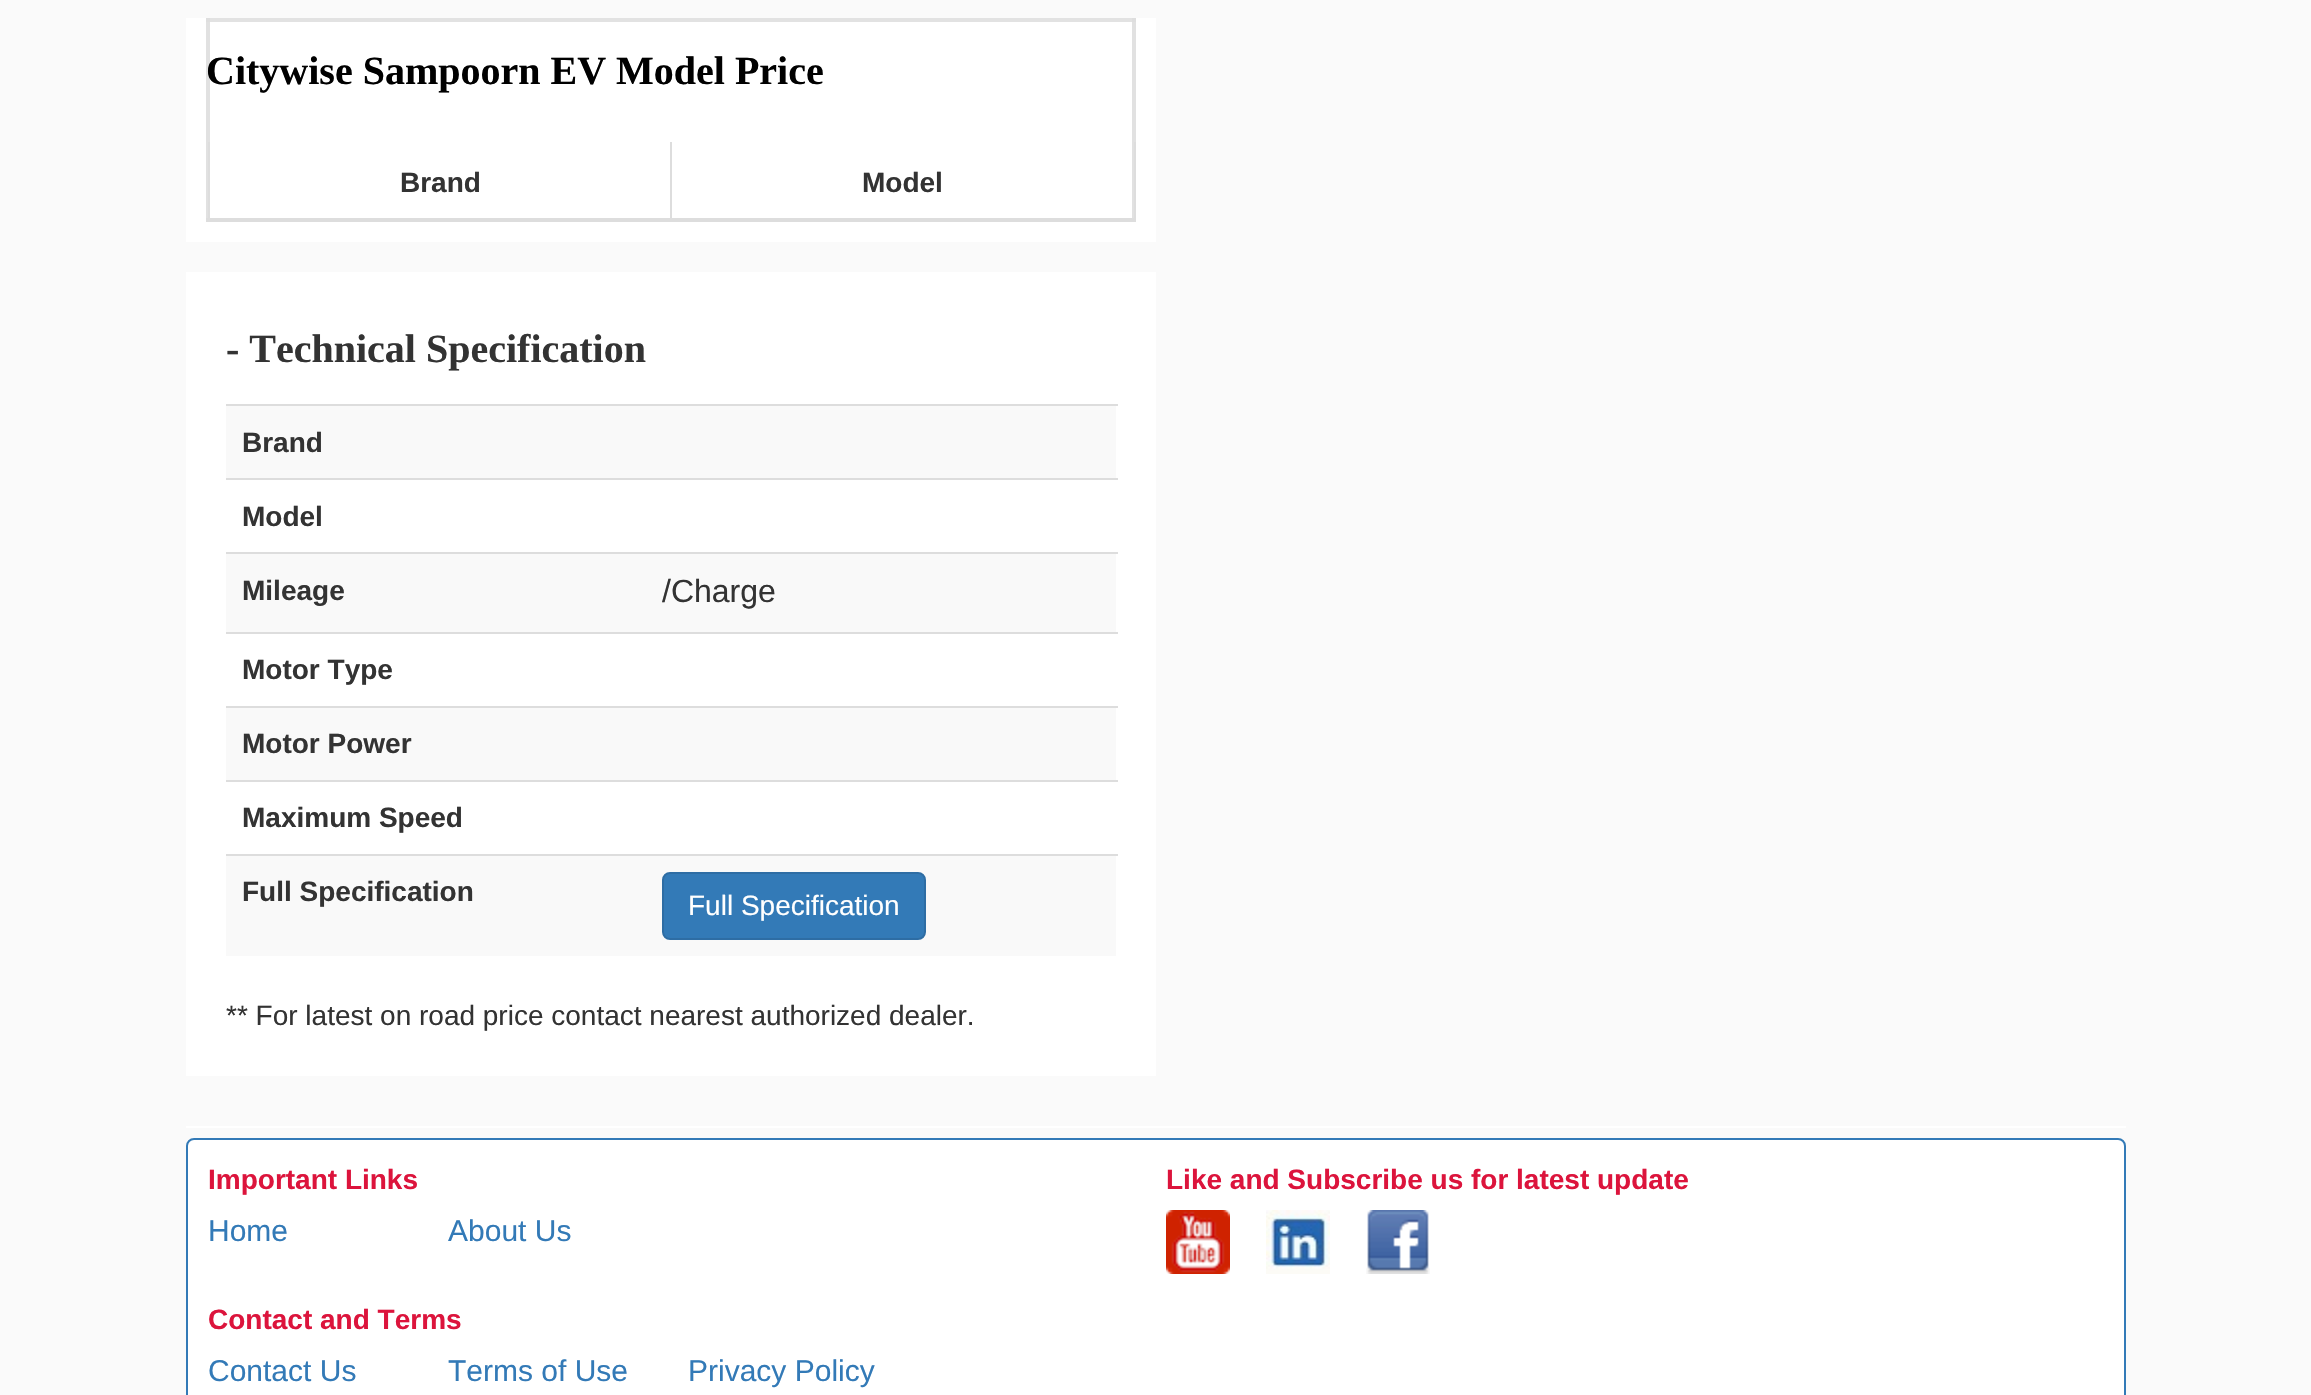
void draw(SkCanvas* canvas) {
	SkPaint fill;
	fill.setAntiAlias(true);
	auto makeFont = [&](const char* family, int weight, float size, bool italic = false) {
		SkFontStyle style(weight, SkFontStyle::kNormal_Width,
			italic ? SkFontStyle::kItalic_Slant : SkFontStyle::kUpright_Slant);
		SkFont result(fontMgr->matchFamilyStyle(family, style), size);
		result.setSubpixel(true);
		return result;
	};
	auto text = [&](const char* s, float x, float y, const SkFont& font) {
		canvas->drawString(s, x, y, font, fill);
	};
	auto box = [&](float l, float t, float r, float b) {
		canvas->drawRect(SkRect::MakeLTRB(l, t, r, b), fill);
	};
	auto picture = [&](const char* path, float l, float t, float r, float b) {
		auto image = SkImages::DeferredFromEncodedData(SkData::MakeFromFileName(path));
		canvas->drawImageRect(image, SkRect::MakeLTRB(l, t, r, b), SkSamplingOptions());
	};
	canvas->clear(0xFFFAFAFA);
	fill.setColor(0xFFFFFFFF);
	box(186, 18, 1156, 242);
	fill.setColor(0xFFE1E1E1);
	box(1132, 18, 1136, 222);
	fill.setColor(0xFFE2E2E2);
	box(206, 18, 1136, 22);
	fill.setColor(0xFFDEDEDE);
	box(1132, 18, 1136, 22);
	fill.setColor(0xFFDDDDDD);
	box(208, 142, 210, 220);
	fill.setColor(0xDEDDDDDD);
	box(206, 18, 210, 222);
	fill.setColor(0xFFDDDDDD);
	box(1134, 142, 1136, 220);
	box(670, 142, 672, 220);
	box(206, 218, 1136, 222);
	fill.setColor(0xFFFFFFFF);
	box(186, 272, 1156, 1076);
	fill.setColor(0xFFF9F9F9);
	box(226, 406, 1116, 478);
	fill.setColor(0xFFDDDDDD);
	box(226, 404, 1118, 406);
	box(226, 478, 1118, 480);
	fill.setColor(0xFFF9F9F9);
	box(226, 554, 1116, 632);
	fill.setColor(0xFFDDDDDD);
	box(226, 552, 1118, 554);
	box(226, 632, 1118, 634);
	fill.setColor(0xFFF9F9F9);
	box(226, 708, 1116, 780);
	fill.setColor(0xFFDDDDDD);
	box(226, 706, 1118, 708);
	box(226, 780, 1118, 782);
	fill.setColor(0xFFF9F9F9);
	box(226, 856, 1116, 956);
	fill.setColor(0xFFDDDDDD);
	box(226, 854, 1118, 856);
	fill.setColor(0xFF337AB7);
	canvas->drawRoundRect(SkRect::MakeLTRB(663, 873, 925, 939), 7, 7, fill);
	fill.setStyle(SkPaint::kStroke_Style);
	fill.setStrokeWidth(2);
	fill.setColor(0xFF2E6DA4);
	canvas->drawRoundRect(SkRect::MakeLTRB(663, 873, 925, 939), 7, 7, fill);
	fill.setStyle(SkPaint::kFill_Style);
	fill.setColor(0xFFFFFFFF);
	box(186, 1126, 2126, 1128);
	canvas->drawRoundRect(SkRect::MakeLTRB(187, 1139, 2125, 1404), 7, 7, fill);
	fill.setStyle(SkPaint::kStroke_Style);
	fill.setColor(0xFF337AB7);
	canvas->drawRoundRect(SkRect::MakeLTRB(187, 1139, 2125, 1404), 7, 7, fill);
	picture("image0.png", 1166, 1210, 1230, 1274);
	picture("image1.png", 1266, 1210, 1330, 1274);
	picture("image2.png", 1366, 1210, 1430, 1274);
	auto font1 = makeFont("Liberation Serif", 700, 40);
	fill.setStyle(SkPaint::kFill_Style);
	fill.setColor(0xFF000000);
	text("Citywise Sampoorn EV Model Price", 206, 84, font1);
	auto font2 = makeFont("Liberation Sans", 700, 28);
	fill.setColor(0xFF333333);
	text("Brand", 400, 192, font2);
	text("Model", 862, 192, font2);
	text("- Technical Specification", 226, 362, font1);
	text("Brand", 242, 452, font2);
	text("Model", 242, 526, font2);
	text("Mileage", 242, 600, font2);
	auto font3 = makeFont("Liberation Sans", 400, 32);
	text("/Charge", 662, 602, font3);
	text("Motor Type", 242, 679, font2);
	text("Motor Power", 242, 753, font2);
	text("Maximum Speed", 242, 827, font2);
	text("Full Specification", 242, 901, font2);
	auto font4 = makeFont("Liberation Sans", 400, 28);
	fill.setColor(0xFFFFFFFF);
	text("Full Specification", 688, 915, font4);
	fill.setColor(0xFF333333);
	text("** For latest on road price contact nearest authorized dealer.", 226, 1025, font4);
	fill.setColor(0xFFDC143C);
	text("Important Links", 208, 1189, font2);
	auto font5 = makeFont("Liberation Sans", 400, 30);
	fill.setColor(0xFF337AB7);
	text("Home", 208, 1241, font5);
	text("About Us", 448, 1241, font5);
	fill.setColor(0xFFDC143C);
	text("Like and Subscribe us for latest update", 1166, 1189, font2);
	text("Contact and Terms", 208, 1329, font2);
	fill.setColor(0xFF337AB7);
	text("Contact Us", 208, 1381, font5);
	text("Terms of Use", 448, 1381, font5);
	text("Privacy Policy", 688, 1381, font5);
}
